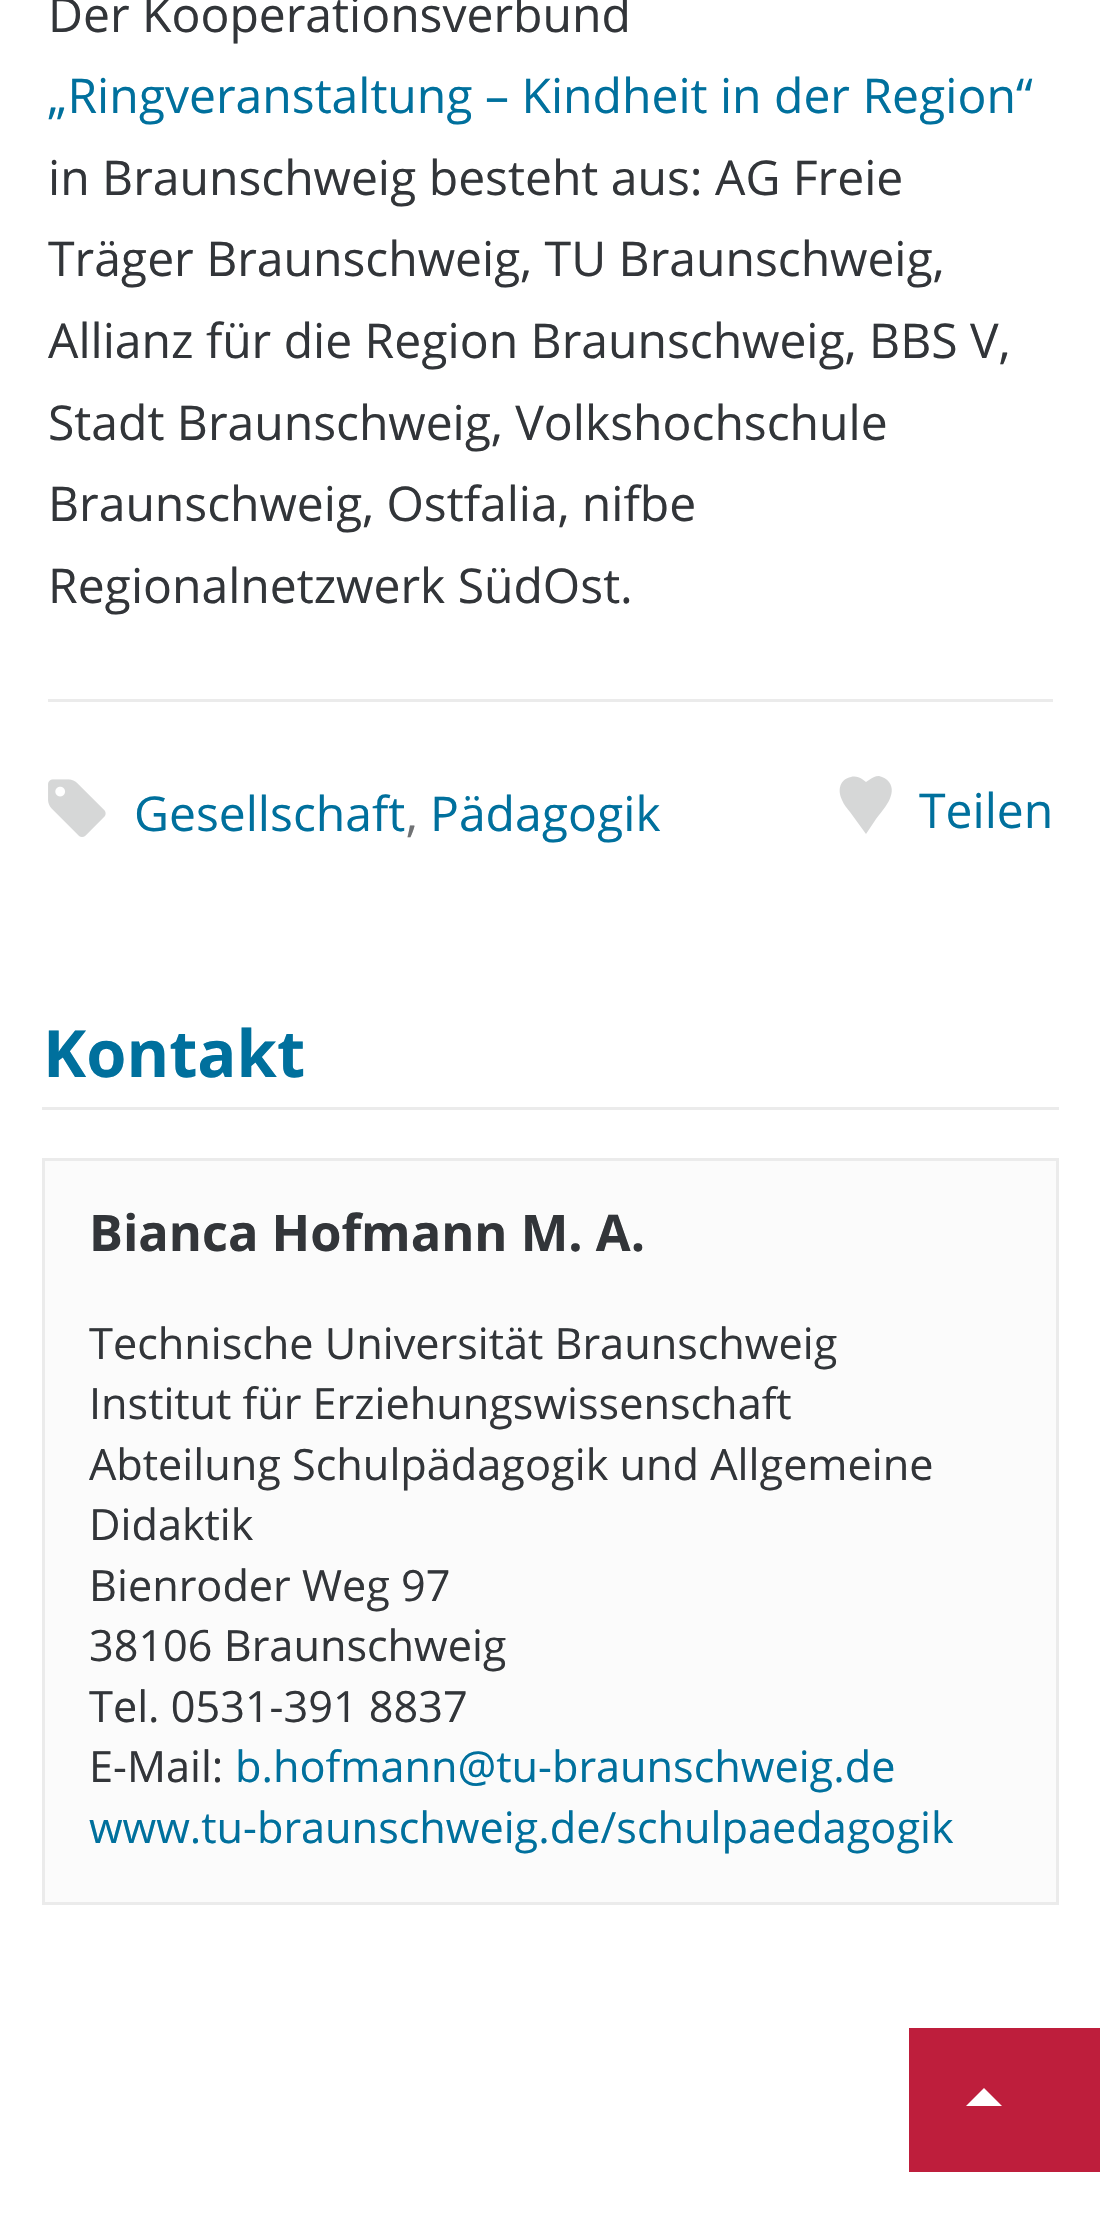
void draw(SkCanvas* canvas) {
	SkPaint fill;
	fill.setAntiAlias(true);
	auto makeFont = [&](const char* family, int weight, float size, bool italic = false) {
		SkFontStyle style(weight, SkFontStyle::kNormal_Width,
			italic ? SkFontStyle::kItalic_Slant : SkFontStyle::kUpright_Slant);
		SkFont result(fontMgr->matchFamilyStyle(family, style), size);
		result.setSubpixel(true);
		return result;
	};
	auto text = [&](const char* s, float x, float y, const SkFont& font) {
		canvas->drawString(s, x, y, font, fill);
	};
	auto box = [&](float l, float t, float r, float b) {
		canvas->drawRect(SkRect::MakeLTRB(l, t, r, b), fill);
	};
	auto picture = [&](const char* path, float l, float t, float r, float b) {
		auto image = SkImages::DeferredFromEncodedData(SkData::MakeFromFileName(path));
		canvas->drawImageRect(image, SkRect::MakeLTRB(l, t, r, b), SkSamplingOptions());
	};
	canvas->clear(0xFFFFFFFF);
	fill.setColor(0xFFEBEBEB);
	box(48, 699, 1053, 702);
	picture("image0.png", 48, 779, 106, 837);
	fill.setColor(0xFFD6D7D7);
	canvas->drawPath(SkPathBuilder().moveTo(851, 777).cubicTo(855, 776, 859, 777, 862, 779).lineTo(866, 782).lineTo(869, 780).cubicTo(872, 778, 875, 776, 879, 776).cubicTo(883, 777, 887, 779, 889, 782).cubicTo(898, 794, 883, 810, 876, 819).lineTo(866, 834).lineTo(850, 812).cubicTo(847, 808, 844, 805, 842, 800).cubicTo(837, 790, 840, 779, 851, 777).close().detach(), fill);
	fill.setColor(0xFFEBEBEB);
	box(42, 1107, 1059, 1110);
	fill.setColor(0xFFFBFBFB);
	canvas->drawRect(SkRect::MakeLTRB(43.5f, 1159.5f, 1057.5f, 1903.5f), fill);
	fill.setStyle(SkPaint::kStroke_Style);
	fill.setStrokeWidth(3);
	fill.setColor(0xFFEBEBEB);
	canvas->drawRect(SkRect::MakeLTRB(43.5f, 1159.5f, 1057.5f, 1903.5f), fill);
	fill.setStyle(SkPaint::kFill_Style);
	fill.setColor(0xFFBE1E3C);
	box(909, 2028, 1100, 2172);
	fill.setColor(0xFFFFFFFF);
	canvas->drawPath(SkPathBuilder().moveTo(1002, 2106).lineTo(966, 2106).lineTo(984, 2088).close().detach(), fill);
	auto font1 = makeFont("Open Sans", 400, 48);
	fill.setColor(0xFF323539);
	text("Der Kooperationsverbund", 48, 32, font1);
	fill.setColor(0xFF00709D);
	text("„Ringveranstaltung – Kindheit in der Region“", 48, 113, font1);
	fill.setColor(0xFF323539);
	text("in Braunschweig besteht aus: AG Freie", 48, 195, font1);
	text("Träger Braunschweig, TU Braunschweig,", 48, 276, font1);
	text("Allianz für die Region Braunschweig, BBS V,", 48, 358, font1);
	text("Stadt Braunschweig, Volkshochschule", 48, 440, font1);
	text("Braunschweig, Ostfalia, nifbe", 48, 521, font1);
	text("Regionalnetzwerk SüdOst.", 48, 603, font1);
	fill.setColor(0xFF00709D);
	text("Gesellschaft", 134, 831, font1);
	fill.setColor(0xFF707274);
	text(",", 406, 831, font1);
	fill.setColor(0xFF00709D);
	text("Pädagogik", 430, 831, font1);
	text("Teilen", 919, 828, font1);
	auto font2 = makeFont("Open Sans", 700, 65);
	text("Kontakt", 43, 1077, font2);
	auto font3 = makeFont("Open Sans", 700, 50.5f);
	fill.setColor(0xFF323539);
	text("Bianca Hofmann M. A.", 89, 1251, font3);
	auto font4 = makeFont("Open Sans", 400, 43.2f);
	text("Technische Universität Braunschweig", 89, 1359, font4);
	text("Institut für Erziehungswissenschaft", 89, 1419, font4);
	text("Abteilung Schulpädagogik und Allgemeine", 89, 1480, font4);
	text("Didaktik", 89, 1540, font4);
	text("Bienroder Weg 97", 89, 1601, font4);
	text("38106 Braunschweig", 89, 1661, font4);
	text("Tel. 0531-391 8837", 89, 1722, font4);
	text("E-Mail:", 89, 1782, font4);
	fill.setColor(0xFF00709D);
	text("b.hofmann@tu-braunschweig.de", 235, 1782, font4);
	text("www.tu-braunschweig.de/schulpaedagogik", 89, 1843, font4);
}
